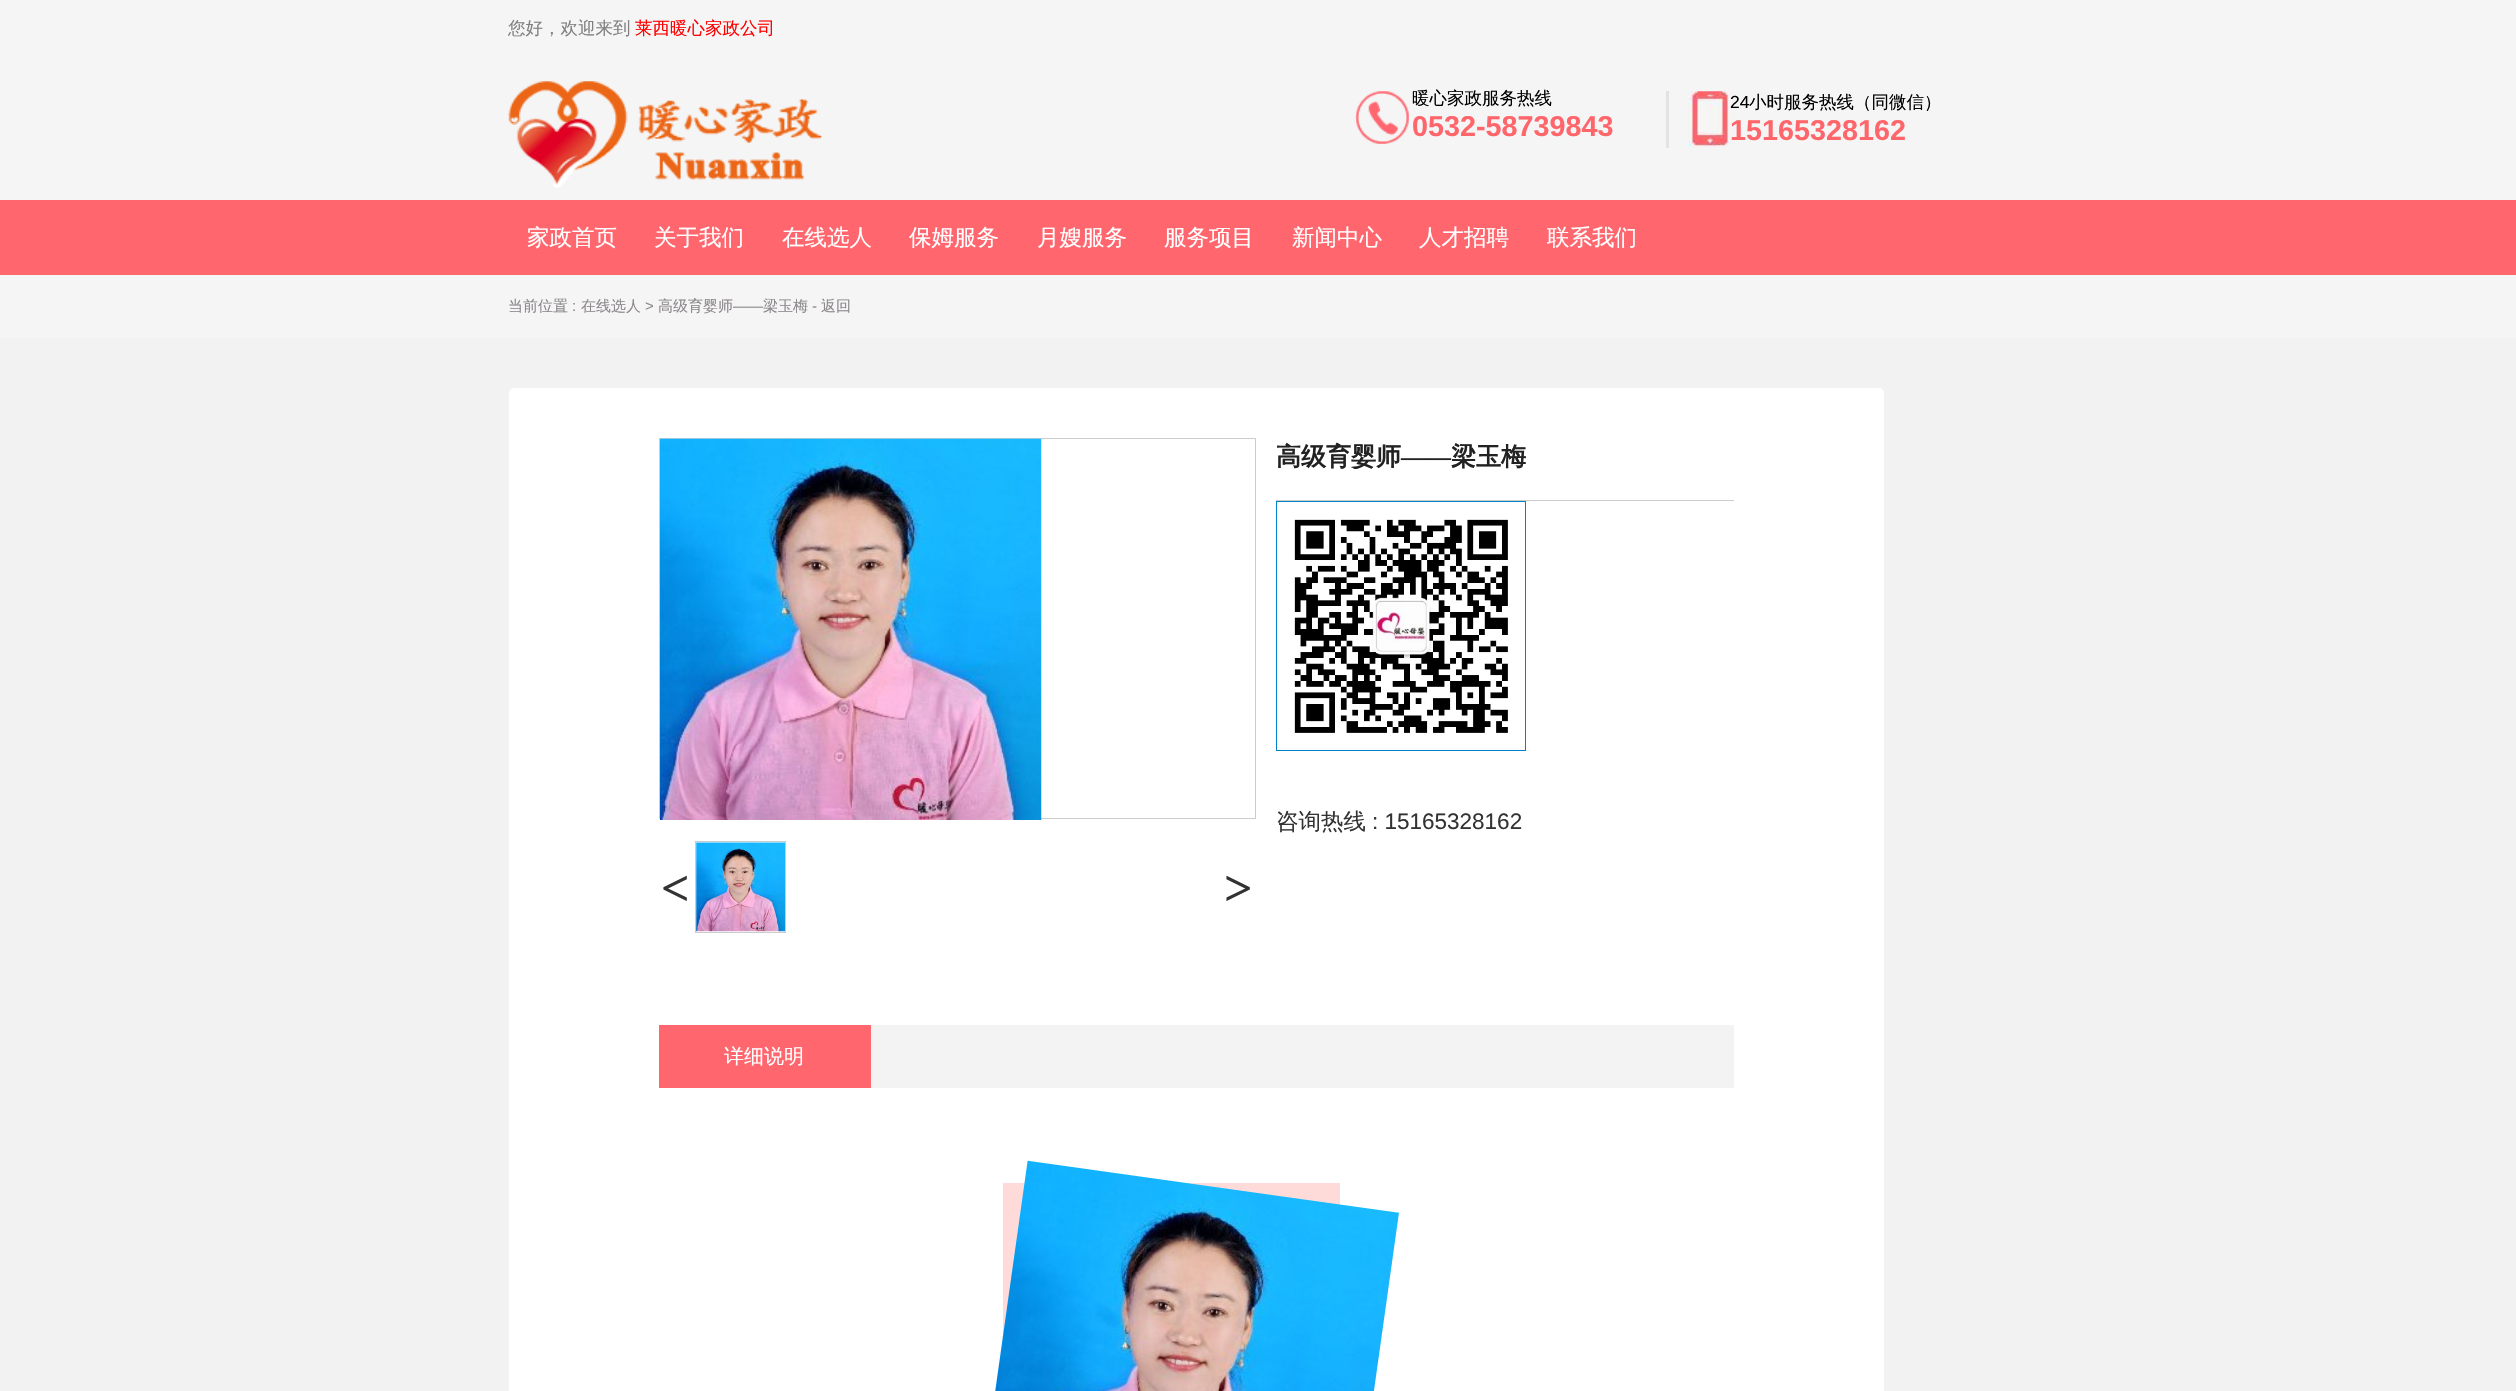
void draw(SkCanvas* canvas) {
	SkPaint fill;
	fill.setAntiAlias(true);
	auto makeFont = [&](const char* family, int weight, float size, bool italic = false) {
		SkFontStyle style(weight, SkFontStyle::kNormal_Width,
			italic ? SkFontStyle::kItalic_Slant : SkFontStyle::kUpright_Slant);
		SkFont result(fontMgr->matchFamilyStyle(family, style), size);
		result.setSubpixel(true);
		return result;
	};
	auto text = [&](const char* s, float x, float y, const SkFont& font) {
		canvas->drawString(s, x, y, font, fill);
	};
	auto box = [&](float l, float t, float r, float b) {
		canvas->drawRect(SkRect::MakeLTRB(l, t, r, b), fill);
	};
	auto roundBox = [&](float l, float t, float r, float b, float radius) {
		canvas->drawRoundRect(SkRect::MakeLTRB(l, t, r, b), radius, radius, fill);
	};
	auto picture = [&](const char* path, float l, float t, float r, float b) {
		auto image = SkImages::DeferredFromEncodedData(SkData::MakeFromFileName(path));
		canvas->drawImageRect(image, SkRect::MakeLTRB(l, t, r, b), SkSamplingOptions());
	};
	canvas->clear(0xFFF5F5F5);
	picture("image0.png", 508, 81, 822, 188);
	picture("image1.png", 1355, 91, 1409, 144);
	fill.setColor(0xFFE3E3E3);
	box(1666, 91, 1669, 148);
	picture("image2.png", 1687, 91, 1729, 147);
	fill.setColor(0xFFFF666E);
	box(0, 200, 2516, 275);
	fill.setColor(0xFFF2F2F2);
	box(0, 338, 2516, 1391);
	fill.setColor(0xFFFFFFFF);
	roundBox(509, 388, 1884, 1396, 5);
	fill.setColor(0xFFCCCCCC);
	box(1276, 500, 1734, 501);
	fill.setStyle(SkPaint::kStroke_Style);
	fill.setStrokeWidth(1);
	fill.setColor(0xFF0082C8);
	canvas->drawRect(SkRect::MakeLTRB(1276.5f, 501.5f, 1525.5f, 750.5f), fill);
	picture("image3.png", 1294, 519, 1508, 733);
	fill.setColor(0xFFCCCCCC);
	canvas->drawRect(SkRect::MakeLTRB(659.5f, 438.5f, 1255.5f, 818.5f), fill);
	picture("image4.png", 660, 438, 1042, 820);
	canvas->drawRect(SkRect::MakeLTRB(695.5f, 841.5f, 785.5f, 932.5f), fill);
	picture("image5.png", 696, 842, 785, 932);
	fill.setStyle(SkPaint::kFill_Style);
	fill.setColor(0xFFF3F3F3);
	box(871, 1025, 1734, 1088);
	fill.setColor(0xFFFF666E);
	box(659, 1025, 871, 1088);
	fill.setColor(0xFFFEDBD9);
	box(1003, 1183, 1340, 1336);
	picture("image6.png", 995, 1160, 1399, 1391);
	auto font1 = makeFont("WenQuanYi Zen Hei", 500, 17.5f);
	fill.setColor(0xFF808080);
	text("您好，欢迎来到", 508, 34, font1);
	fill.setColor(0xFFFF0000);
	text("莱西暖心家政公司", 635, 34, font1);
	fill.setColor(0xFF000000);
	text("暖心家政服务热线", 1412, 104, font1);
	auto font2 = makeFont("Liberation Sans", 700, 28.75f);
	fill.setColor(0xFFFF666C);
	text("0532-58739843", 1412, 136, font2);
	auto font3 = makeFont("Liberation Sans", 400, 17.5f);
	fill.setColor(0xFF000000);
	text("24", 1730, 108, font3);
	text("小时服务热线（同微信）", 1749, 108, font1);
	fill.setColor(0xFFFF666C);
	text("15165328162", 1730, 140, font2);
	auto font4 = makeFont("WenQuanYi Zen Hei", 500, 22.5f);
	fill.setColor(0xFFFFFFFF);
	text("家政首页", 527, 245, font4);
	text("关于我们", 654, 245, font4);
	text("在线选人", 782, 245, font4);
	text("保姆服务", 909, 245, font4);
	text("月嫂服务", 1037, 245, font4);
	text("服务项目", 1164, 245, font4);
	text("新闻中心", 1292, 245, font4);
	text("人才招聘", 1419, 245, font4);
	text("联系我们", 1547, 245, font4);
	auto font5 = makeFont("WenQuanYi Zen Hei", 500, 15);
	fill.setColor(0xFF8C888C);
	text("当前位置", 508, 311, font5);
	auto font6 = makeFont("Liberation Sans", 400, 15);
	text(":", 572, 311, font6);
	text("在线选人", 581, 311, font5);
	text(">", 645, 311, font6);
	text("高级育婴师", 658, 311, font5);
	text("——", 733, 311, font6);
	text("梁玉梅", 763, 311, font5);
	text("-", 812, 311, font6);
	text("返回", 821, 311, font5);
	auto font7 = makeFont("WenQuanYi Zen Hei", 700, 25);
	fill.setColor(0xFF222222);
	text("高级育婴师", 1276, 465, font7);
	auto font8 = makeFont("Liberation Serif", 700, 25);
	text("——", 1401, 465, font8);
	text("梁玉梅", 1451, 465, font7);
	fill.setColor(0xFF333333);
	text("咨询热线", 1276, 829, font4);
	auto font9 = makeFont("Liberation Sans", 400, 22.5f);
	text(": 15165328162", 1372, 829, font9);
	auto font10 = makeFont("Liberation Serif", 700, 50);
	text("<", 661, 905, font10);
	text(">", 1224, 905, font10);
	auto font11 = makeFont("WenQuanYi Zen Hei", 500, 20);
	fill.setColor(0xFFFFFFFF);
	text("详细说明", 724, 1063, font11);
}
